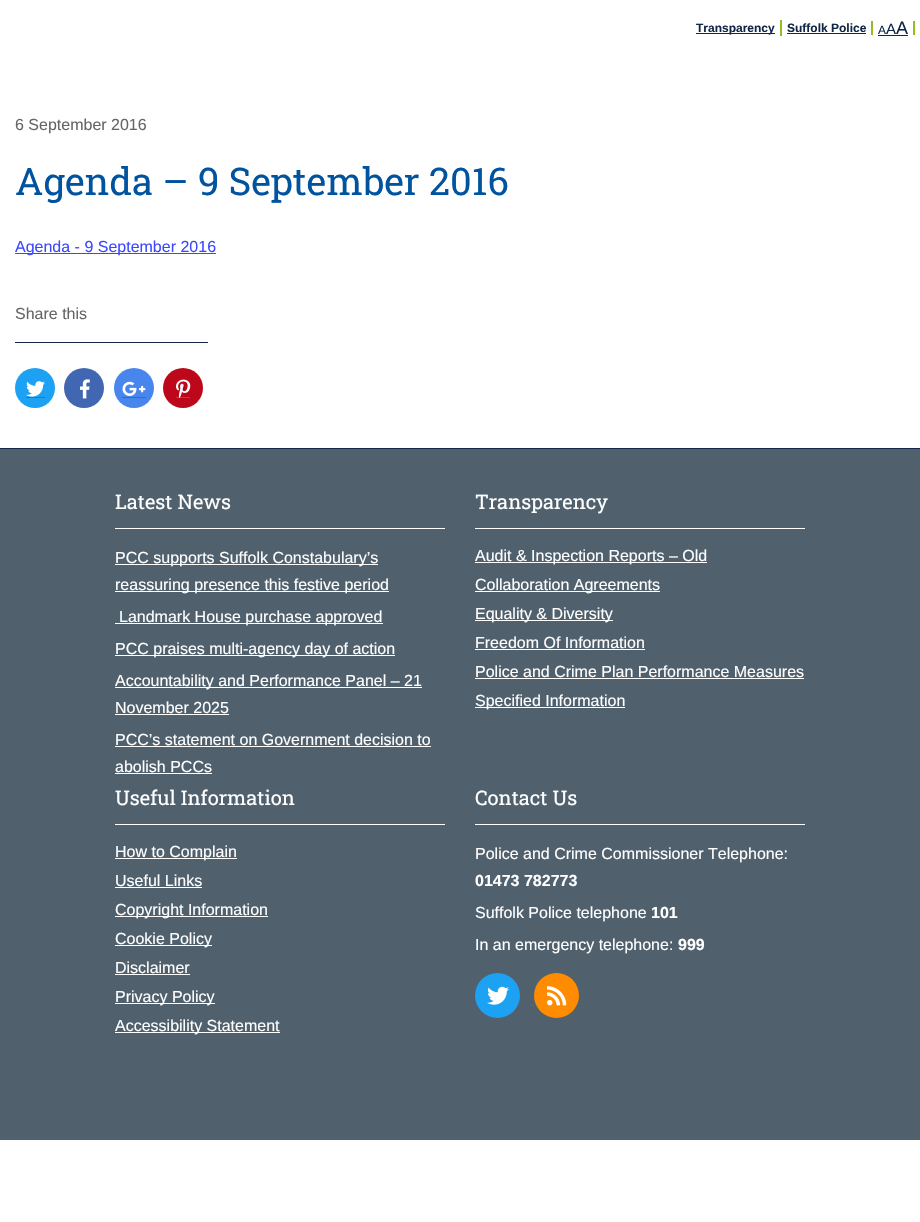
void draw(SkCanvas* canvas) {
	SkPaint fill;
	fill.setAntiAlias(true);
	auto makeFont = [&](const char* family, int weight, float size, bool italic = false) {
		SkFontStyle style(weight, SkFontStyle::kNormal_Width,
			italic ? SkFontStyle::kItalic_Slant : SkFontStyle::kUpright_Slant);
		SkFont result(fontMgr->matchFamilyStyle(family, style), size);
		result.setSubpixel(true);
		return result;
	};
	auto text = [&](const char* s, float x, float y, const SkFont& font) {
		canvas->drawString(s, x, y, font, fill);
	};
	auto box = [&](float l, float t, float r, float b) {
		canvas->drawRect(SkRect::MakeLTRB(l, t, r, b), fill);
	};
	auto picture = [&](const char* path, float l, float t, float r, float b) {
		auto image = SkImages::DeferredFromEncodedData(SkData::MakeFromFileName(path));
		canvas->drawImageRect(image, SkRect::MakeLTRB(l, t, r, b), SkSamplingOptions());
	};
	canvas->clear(0xFFFFFFFF);
	fill.setColor(0xFF122747);
	box(696, 33, 775, 34);
	fill.setColor(0xFF92BF1F);
	box(780, 20, 782, 36);
	fill.setColor(0xFF122747);
	box(787, 33, 866, 34);
	fill.setColor(0xFF92BF1F);
	box(871, 21, 873, 35);
	fill.setColor(0xFF122747);
	box(878, 35, 908, 36);
	fill.setColor(0xFF92BF1F);
	box(913, 21, 915, 35);
	fill.setColor(0xFF3B48FF);
	box(15, 253, 216, 254);
	fill.setColor(0xFF122747);
	box(15, 342, 208, 343);
	fill.setColor(0xFF1DA1F2);
	canvas->drawCircle(35, 388, 20, fill);
	picture("image0.png", 26, 381, 45, 397);
	fill.setColor(0xFF007BFF);
	box(26, 397, 45, 398);
	fill.setColor(0xFF4267B2);
	canvas->drawCircle(84, 388, 20, fill);
	fill.setColor(0xFF007BFF);
	box(80, 397, 89, 398);
	picture("image1.png", 80, 379, 90, 399);
	fill.setColor(0xFF4885ED);
	canvas->drawCircle(134, 388, 20, fill);
	picture("image2.png", 122, 381, 146, 396);
	fill.setColor(0xFF007BFF);
	box(122, 397, 146, 398);
	fill.setColor(0xFFBD081C);
	canvas->drawCircle(183, 388, 20, fill);
	fill.setColor(0xFF007BFF);
	box(176, 397, 190, 398);
	picture("image3.png", 176, 379, 191, 399);
	fill.setColor(0xFF122747);
	box(0, 448, 920, 449);
	fill.setColor(0xFF50606D);
	box(0, 449, 920, 1140);
	fill.setColor(0xFFFFFFFF);
	box(115, 528, 445, 529);
	box(115, 564, 378, 565);
	box(115, 591, 389, 592);
	box(115, 623, 383, 624);
	box(115, 655, 395, 656);
	box(115, 687, 422, 688);
	box(115, 714, 229, 715);
	box(115, 746, 431, 747);
	box(115, 773, 212, 774);
	box(475, 528, 805, 529);
	box(475, 562, 707, 563);
	box(475, 591, 660, 592);
	box(475, 620, 613, 621);
	box(475, 649, 645, 650);
	box(475, 678, 804, 679);
	box(475, 707, 625, 708);
	box(115, 824, 445, 825);
	box(115, 858, 237, 859);
	box(115, 887, 202, 888);
	box(115, 916, 268, 917);
	box(115, 945, 212, 946);
	box(115, 974, 190, 975);
	box(115, 1003, 215, 1004);
	box(115, 1032, 280, 1033);
	box(475, 824, 805, 825);
	fill.setColor(0xFF1DA1F2);
	canvas->drawCircle(497.5f, 995.5f, 22.5f, fill);
	picture("image4.png", 487, 986, 509, 1005);
	fill.setColor(0xFF007BFF);
	box(530, 1005, 534, 1006);
	fill.setColor(0xFFFF8C00);
	canvas->drawCircle(556.5f, 995.5f, 22.5f, fill);
	picture("image5.png", 547, 986, 567, 1006);
	auto font1 = makeFont("Liberation Sans", 700, 12);
	fill.setColor(0xFF122747);
	text("Transparency", 696, 32, font1);
	text("Suffolk Police", 787, 32, font1);
	auto font2 = makeFont("Liberation Sans", 400, 12);
	text("A", 878, 34, font2);
	auto font3 = makeFont("Liberation Sans", 400, 15);
	text("A", 886, 34, font3);
	auto font4 = makeFont("Liberation Sans", 400, 18);
	text("A", 896, 34, font4);
	auto font5 = makeFont("Liberation Sans", 400, 16);
	fill.setColor(0xFF656565);
	text("6 September 2016", 15, 130, font5);
	auto font6 = makeFont("Roboto Slab", 400, 38);
	fill.setColor(0xFF00539F);
	text("Agenda – 9 September 2016", 15, 195, font6);
	fill.setColor(0xFF3B48FF);
	text("Agenda - 9 September 2016", 15, 252, font5);
	fill.setColor(0xFF656565);
	text("Share this", 15, 319, font5);
	auto font7 = makeFont("Roboto Slab", 400, 20);
	fill.setColor(0xFFFFFFFF);
	text("Latest News", 115, 509, font7);
	text("PCC supports Suffolk Constabulary’s", 115, 563, font5);
	text("reassuring presence this festive period", 115, 590, font5);
	text("Landmark House purchase approved", 119, 622, font5);
	text("PCC praises multi-agency day of action", 115, 654, font5);
	text("Accountability and Performance Panel – 21", 115, 686, font5);
	text("November 2025", 115, 713, font5);
	text("PCC’s statement on Government decision to", 115, 745, font5);
	text("abolish PCCs", 115, 772, font5);
	text("Transparency", 475, 509, font7);
	text("Audit & Inspection Reports – Old", 475, 561, font5);
	text("Collaboration Agreements", 475, 590, font5);
	text("Equality & Diversity", 475, 619, font5);
	text("Freedom Of Information", 475, 648, font5);
	text("Police and Crime Plan Performance Measures", 475, 677, font5);
	text("Specified Information", 475, 706, font5);
	text("Useful Information", 115, 805, font7);
	text("How to Complain", 115, 857, font5);
	text("Useful Links", 115, 886, font5);
	text("Copyright Information", 115, 915, font5);
	text("Cookie Policy", 115, 944, font5);
	text("Disclaimer", 115, 973, font5);
	text("Privacy Policy", 115, 1002, font5);
	text("Accessibility Statement", 115, 1031, font5);
	text("Contact Us", 475, 805, font7);
	text("Police and Crime Commissioner Telephone:", 475, 859, font5);
	auto font8 = makeFont("Liberation Sans", 700, 16);
	text("01473 782773", 475, 886, font8);
	text("Suffolk Police telephone", 475, 918, font5);
	text("101", 651, 918, font8);
	text("In an emergency telephone:", 475, 950, font5);
	text("999", 678, 950, font8);
}
